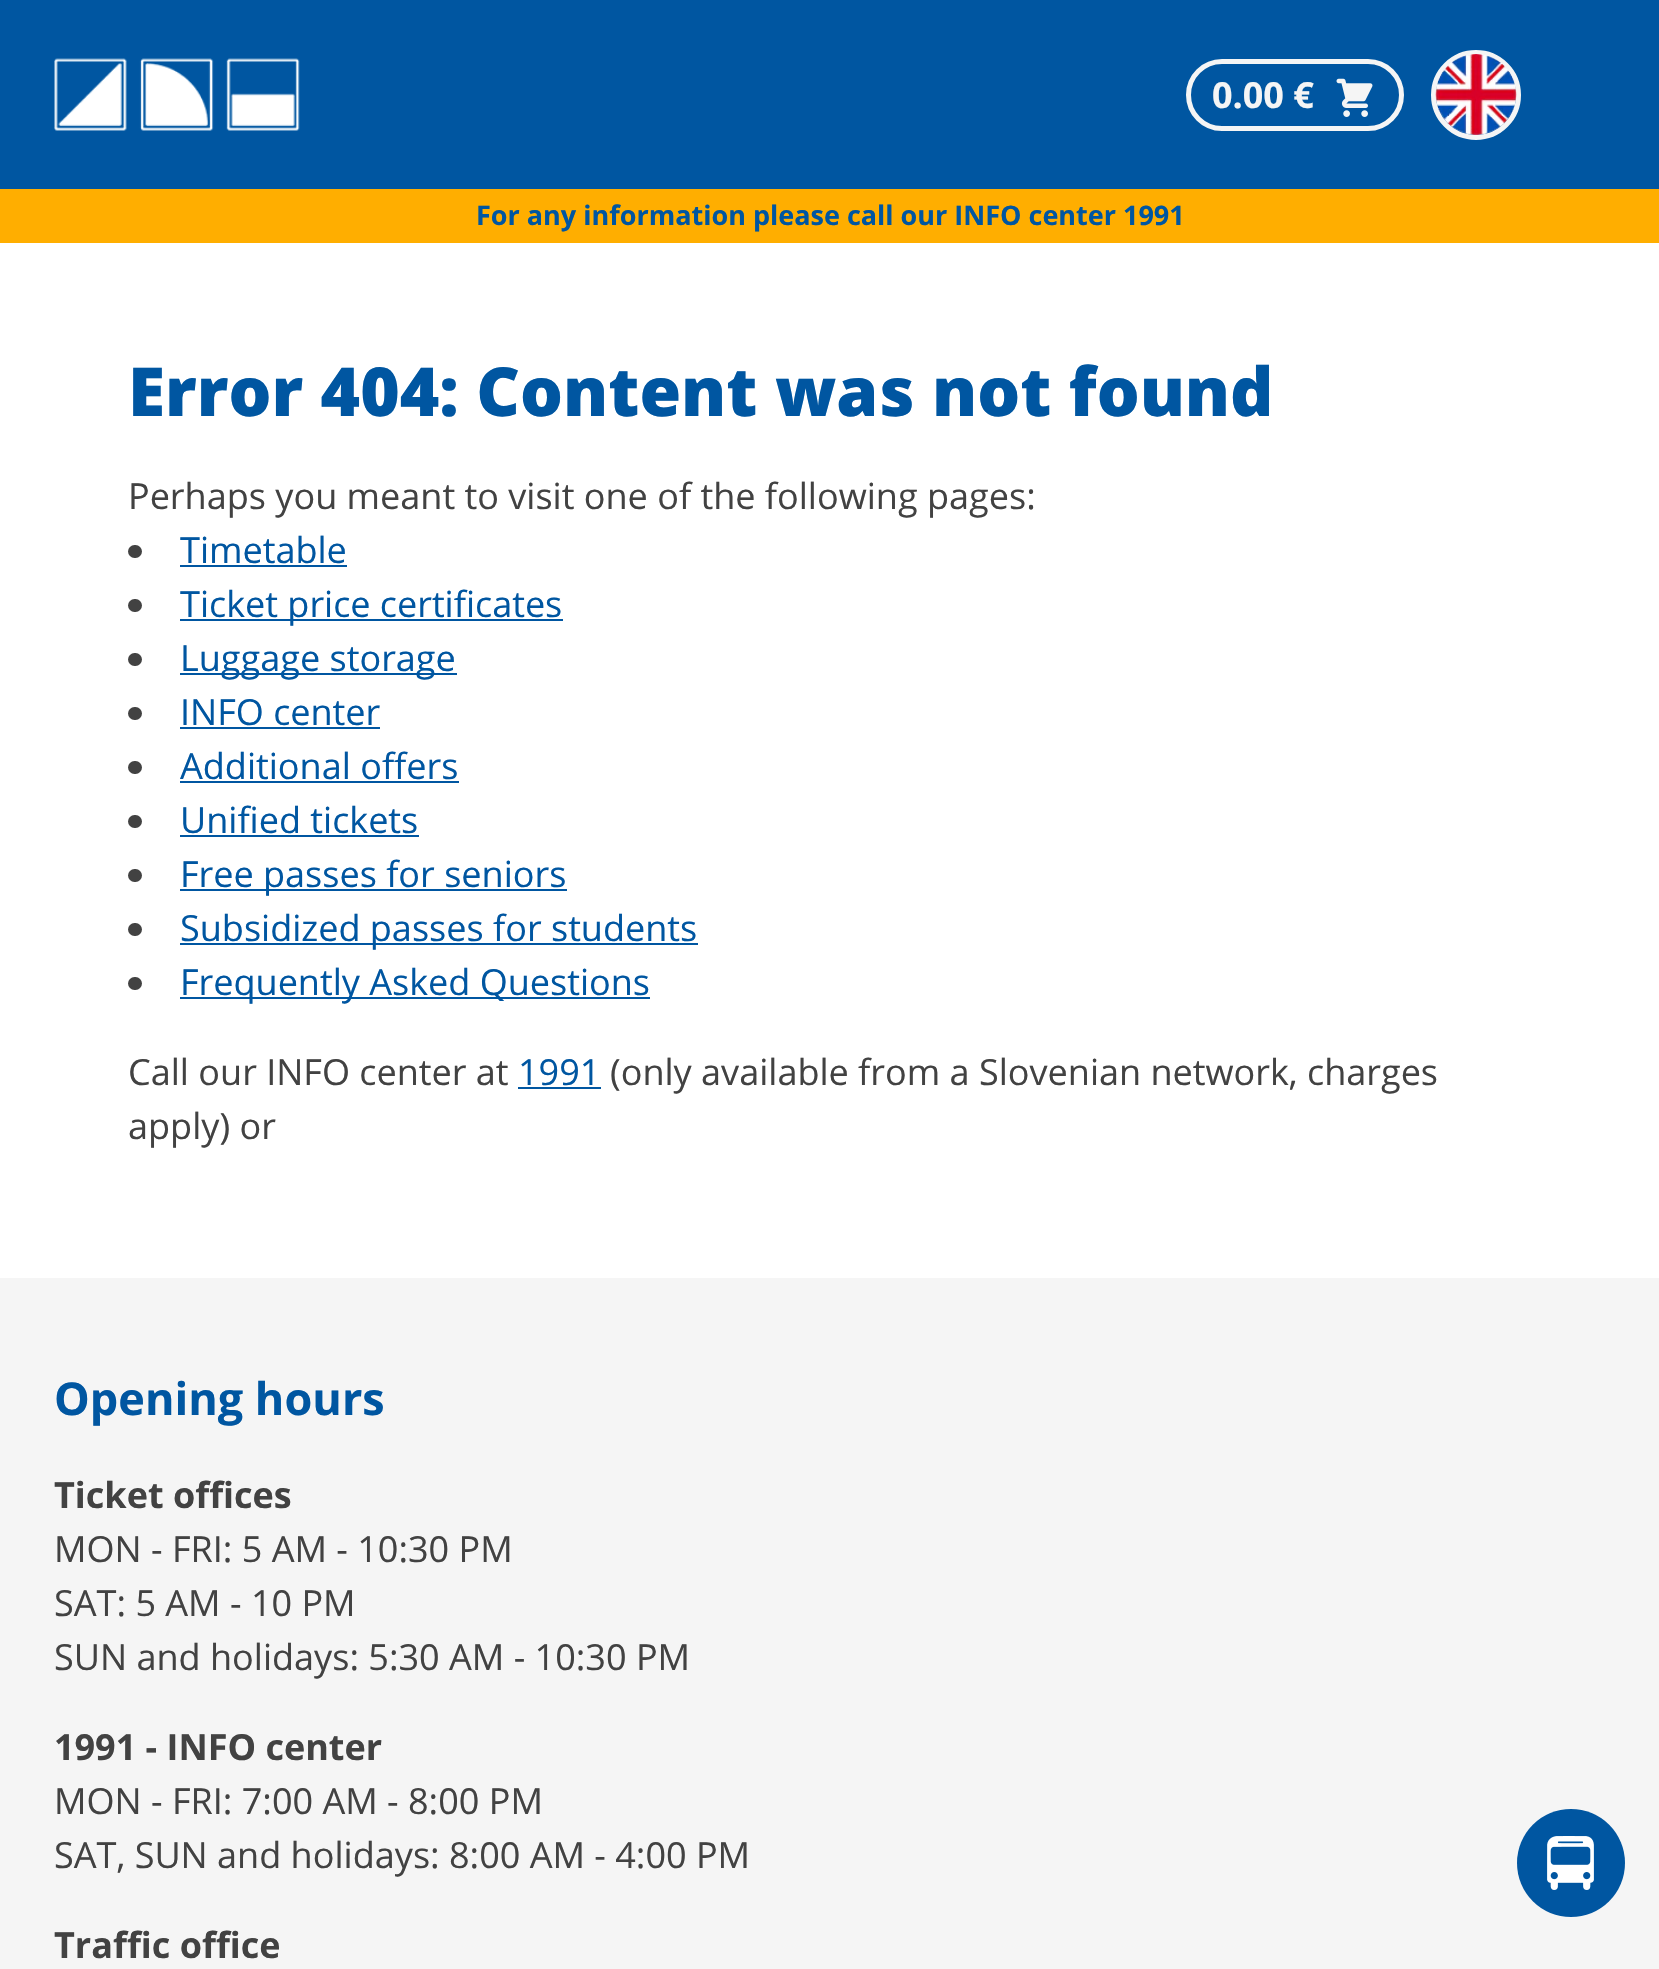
void draw(SkCanvas* canvas) {
	SkPaint fill;
	fill.setAntiAlias(true);
	auto makeFont = [&](const char* family, int weight, float size, bool italic = false) {
		SkFontStyle style(weight, SkFontStyle::kNormal_Width,
			italic ? SkFontStyle::kItalic_Slant : SkFontStyle::kUpright_Slant);
		SkFont result(fontMgr->matchFamilyStyle(family, style), size);
		result.setSubpixel(true);
		return result;
	};
	auto text = [&](const char* s, float x, float y, const SkFont& font) {
		canvas->drawString(s, x, y, font, fill);
	};
	auto box = [&](float l, float t, float r, float b) {
		canvas->drawRect(SkRect::MakeLTRB(l, t, r, b), fill);
	};
	auto roundBox = [&](float l, float t, float r, float b, float radius) {
		canvas->drawRoundRect(SkRect::MakeLTRB(l, t, r, b), radius, radius, fill);
	};
	auto picture = [&](const char* path, float l, float t, float r, float b) {
		auto image = SkImages::DeferredFromEncodedData(SkData::MakeFromFileName(path));
		canvas->drawImageRect(image, SkRect::MakeLTRB(l, t, r, b), SkSamplingOptions());
	};
	canvas->clear(0xFFFFFFFF);
	fill.setColor(0xFF0056A1);
	box(0, 0, 1659, 189);
	picture("image0.png", 54, 58, 300, 131);
	fill.setStyle(SkPaint::kStroke_Style);
	fill.setStrokeWidth(5);
	fill.setColor(0xFFF5F5F5);
	canvas->drawRoundRect(SkRect::MakeLTRB(1188.5f, 61.5f, 1401.5f, 128.5f), 33.5f, 33.5f, fill);
	picture("image1.png", 1336, 78, 1373, 117);
	canvas->drawCircle(1476, 95, 42.5f, fill);
	picture("image2.png", 1435, 54, 1517, 135);
	fill.setStyle(SkPaint::kFill_Style);
	fill.setColor(0xFFFFAE00);
	box(0, 189, 1659, 243);
	fill.setColor(0xFF424242);
	roundBox(128, 545, 142, 558, 6.5f);
	fill.setColor(0xFF0056A1);
	box(180, 565, 347, 567);
	fill.setColor(0xFF424242);
	roundBox(128, 599, 142, 612, 6.5f);
	fill.setColor(0xFF0056A1);
	box(180, 619, 563, 621);
	fill.setColor(0xFF424242);
	roundBox(128, 653, 142, 666, 6.5f);
	fill.setColor(0xFF0056A1);
	box(180, 673, 457, 675);
	fill.setColor(0xFF424242);
	roundBox(128, 707, 142, 720, 6.5f);
	fill.setColor(0xFF0056A1);
	box(180, 727, 380, 729);
	fill.setColor(0xFF424242);
	roundBox(128, 761, 142, 774, 6.5f);
	fill.setColor(0xFF0056A1);
	box(180, 781, 459, 783);
	fill.setColor(0xFF424242);
	roundBox(128, 815, 142, 828, 6.5f);
	fill.setColor(0xFF0056A1);
	box(180, 835, 419, 837);
	fill.setColor(0xFF424242);
	roundBox(128, 869, 142, 882, 6.5f);
	fill.setColor(0xFF0056A1);
	box(180, 889, 567, 891);
	fill.setColor(0xFF424242);
	roundBox(128, 923, 142, 936, 6.5f);
	fill.setColor(0xFF0056A1);
	box(180, 943, 698, 945);
	fill.setColor(0xFF424242);
	roundBox(128, 977, 142, 990, 6.5f);
	fill.setColor(0xFF0056A1);
	box(180, 997, 650, 999);
	box(518, 1087, 601, 1089);
	fill.setColor(0xFFF5F5F5);
	box(0, 1278, 1659, 1969);
	fill.setColor(0xFF0056A1);
	canvas->drawCircle(1571, 1863, 54, fill);
	picture("image3.png", 1547, 1836, 1594, 1890);
	auto font1 = makeFont("Open Sans", 700, 36);
	fill.setColor(0xFFF5F5F5);
	text("0.00 €", 1212, 108, font1);
	auto font2 = makeFont("Open Sans", 700, 27);
	fill.setColor(0xFF0056A1);
	text("For any information please call our INFO center 1991", 476, 225, font2);
	auto font3 = makeFont("Open Sans", 800, 67.5f);
	text("Error 404: Content was not found", 128, 416, font3);
	auto font4 = makeFont("Open Sans", 400, 36);
	fill.setColor(0xFF424242);
	text("Perhaps you meant to visit one of the following pages:", 128, 509, font4);
	fill.setColor(0xFF0056A1);
	text("Timetable", 180, 563, font4);
	text("Ticket price certificates", 180, 617, font4);
	text("Luggage storage", 180, 671, font4);
	text("INFO center", 180, 725, font4);
	text("Additional offers", 180, 779, font4);
	text("Unified tickets", 180, 833, font4);
	text("Free passes for seniors", 180, 887, font4);
	text("Subsidized passes for students", 180, 941, font4);
	text("Frequently Asked Questions", 180, 995, font4);
	fill.setColor(0xFF424242);
	text("Call our INFO center at", 128, 1085, font4);
	fill.setColor(0xFF0056A1);
	text("1991", 518, 1085, font4);
	fill.setColor(0xFF424242);
	text("(only available from a Slovenian network, charges", 610, 1085, font4);
	text("apply) or", 128, 1139, font4);
	auto font5 = makeFont("Open Sans", 700, 45);
	fill.setColor(0xFF0056A1);
	text("Opening hours", 54, 1415, font5);
	fill.setColor(0xFF424242);
	text("Ticket offices", 54, 1508, font1);
	text("MON - FRI: 5 AM - 10:30 PM", 54, 1562, font4);
	text("SAT: 5 AM - 10 PM", 54, 1616, font4);
	text("SUN and holidays: 5:30 AM - 10:30 PM", 54, 1670, font4);
	text("1991 - INFO center", 54, 1760, font1);
	text("MON - FRI: 7:00 AM - 8:00 PM", 54, 1814, font4);
	text("SAT, SUN and holidays: 8:00 AM - 4:00 PM", 54, 1868, font4);
	text("Traffic office", 54, 1958, font1);
}
